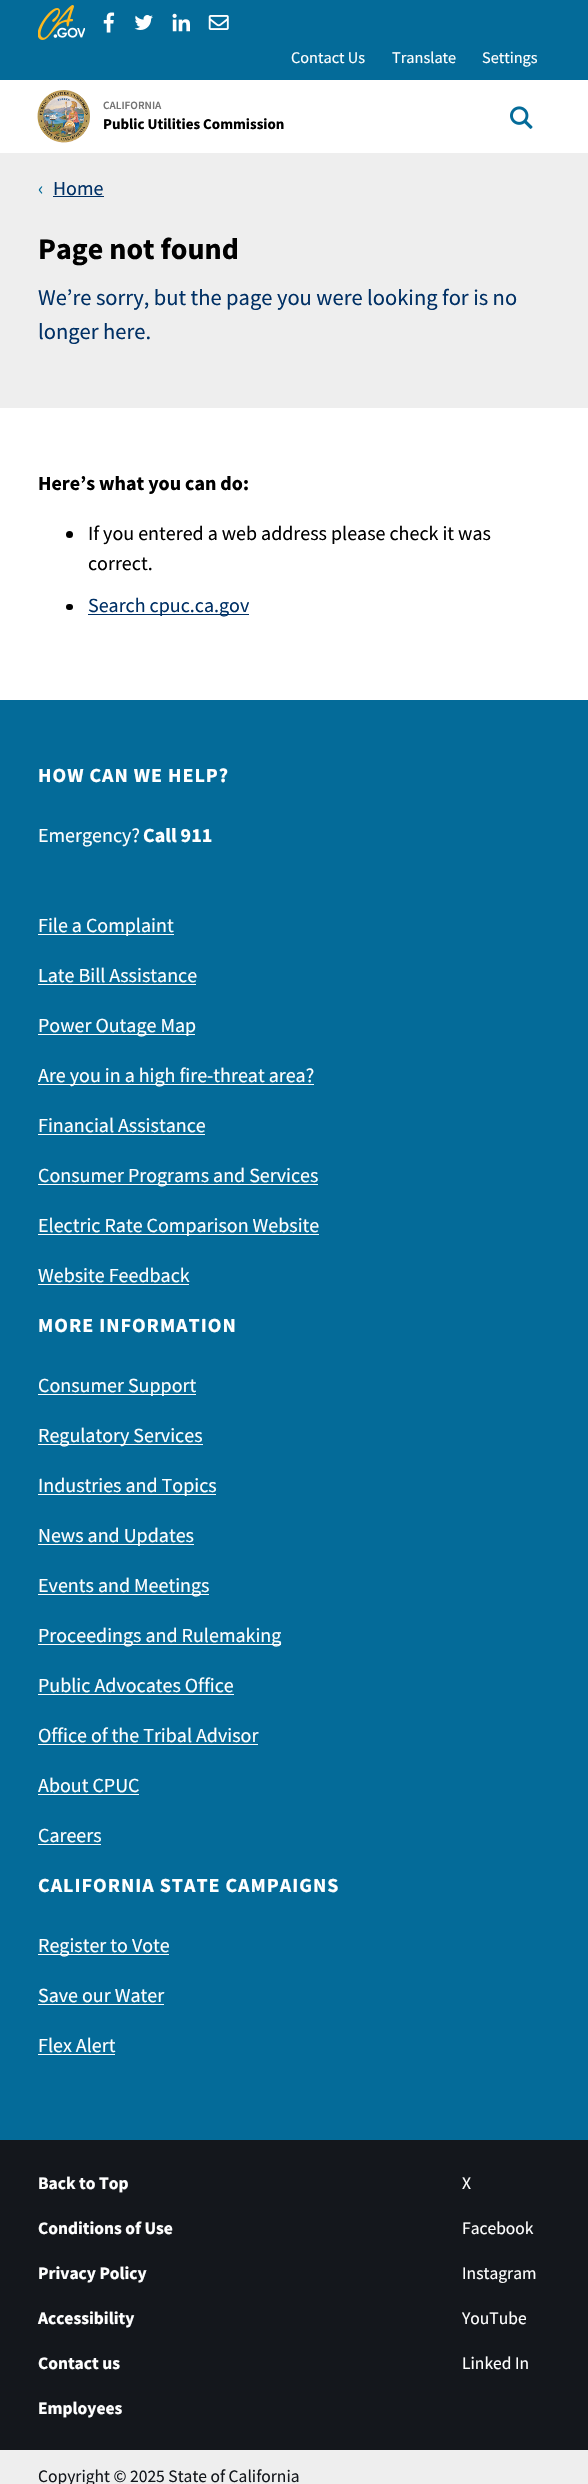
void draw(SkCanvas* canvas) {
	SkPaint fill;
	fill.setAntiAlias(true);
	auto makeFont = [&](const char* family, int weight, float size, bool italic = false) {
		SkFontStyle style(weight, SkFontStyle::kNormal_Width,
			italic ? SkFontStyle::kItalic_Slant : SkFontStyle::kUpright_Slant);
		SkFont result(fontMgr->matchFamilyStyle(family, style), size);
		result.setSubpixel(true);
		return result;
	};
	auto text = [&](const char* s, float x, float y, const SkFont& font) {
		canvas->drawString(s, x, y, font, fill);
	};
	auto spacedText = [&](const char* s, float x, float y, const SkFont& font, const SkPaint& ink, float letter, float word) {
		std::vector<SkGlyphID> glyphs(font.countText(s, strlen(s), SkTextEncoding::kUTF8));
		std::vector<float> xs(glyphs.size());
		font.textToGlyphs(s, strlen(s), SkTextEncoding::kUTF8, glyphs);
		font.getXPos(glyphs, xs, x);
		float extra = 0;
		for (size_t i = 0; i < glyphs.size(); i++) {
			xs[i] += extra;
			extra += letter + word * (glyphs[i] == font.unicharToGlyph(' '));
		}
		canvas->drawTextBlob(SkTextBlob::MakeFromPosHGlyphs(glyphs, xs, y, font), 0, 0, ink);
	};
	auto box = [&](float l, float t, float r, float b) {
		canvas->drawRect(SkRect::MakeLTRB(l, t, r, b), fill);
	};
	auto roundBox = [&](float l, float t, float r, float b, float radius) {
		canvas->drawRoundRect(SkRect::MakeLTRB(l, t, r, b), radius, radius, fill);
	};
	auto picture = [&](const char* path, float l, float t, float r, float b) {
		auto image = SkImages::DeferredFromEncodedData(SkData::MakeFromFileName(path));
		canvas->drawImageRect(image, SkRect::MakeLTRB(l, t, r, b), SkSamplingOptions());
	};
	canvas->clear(0xFFFFFFFF);
	fill.setColor(0xFF046B99);
	box(0, 0, 588, 80);
	picture("image0.png", 38, 5, 85, 40);
	picture("image1.png", 103, 12, 115, 33);
	picture("image2.png", 134, 15, 153, 30);
	picture("image3.png", 172, 13, 190, 32);
	picture("image4.png", 208, 15, 229, 30);
	picture("image5.png", 37, 90, 90, 143);
	picture("image6.png", 510, 106, 533, 129);
	fill.setColor(0xFFEEEEEE);
	box(0, 153, 588, 408);
	fill.setColor(0xFF003065);
	box(53, 196, 104, 197);
	fill.setColor(0xFF000000);
	canvas->drawCircle(69.5f, 534.5f, 3.5f, fill);
	roundBox(66, 604, 73, 610, 3);
	fill.setColor(0xFF003065);
	box(88, 614, 249, 615);
	fill.setColor(0xFF046B99);
	box(0, 700, 588, 2140);
	fill.setColor(0xFFFFFFFF);
	box(38, 934, 174, 935);
	box(38, 984, 196, 985);
	box(38, 1034, 195, 1035);
	box(38, 1084, 314, 1085);
	box(38, 1134, 205, 1135);
	box(38, 1184, 318, 1185);
	box(38, 1234, 319, 1235);
	box(38, 1284, 189, 1285);
	box(38, 1394, 196, 1395);
	box(38, 1444, 203, 1445);
	box(38, 1494, 216, 1495);
	box(38, 1544, 194, 1545);
	box(38, 1594, 209, 1595);
	box(38, 1644, 281, 1645);
	box(38, 1694, 234, 1695);
	box(38, 1744, 258, 1745);
	box(38, 1794, 139, 1795);
	box(38, 1844, 101, 1845);
	box(38, 1954, 169, 1955);
	box(38, 2004, 164, 2005);
	box(38, 2054, 115, 2055);
	fill.setColor(0xFF14171C);
	box(0, 2140, 588, 2450);
	fill.setColor(0xFFEEEEEE);
	box(0, 2450, 588, 2484);
	auto font1 = makeFont("Source Sans Pro", 400, 16.25f);
	fill.setColor(0xFFFFFFFF);
	text("Contact Us", 291, 63, font1);
	text("Translate", 392, 63, font1);
	text("Settings", 482, 63, font1);
	auto font2 = makeFont("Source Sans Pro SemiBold", 600, 11.25f);
	fill.setColor(0xFF747474);
	text("CALIFORNIA", 103, 109, font2);
	auto font3 = makeFont("Source Sans Pro", 700, 15);
	fill.setColor(0xFF000000);
	text("Public Utilities Commission", 103, 129, font3);
	auto font4 = makeFont("Source Sans Pro", 400, 20);
	fill.setColor(0xFF046B99);
	text("‹", 38, 195, font4);
	fill.setColor(0xFF003065);
	text("Home", 53, 195, font4);
	auto font5 = makeFont("Source Sans Pro", 700, 30);
	fill.setColor(0xFF000000);
	text("Page not found", 38, 259, font5);
	auto font6 = makeFont("Source Sans Pro", 400, 22.5f);
	fill.setColor(0xFF003065);
	text("We’re sorry, but the page you were looking for is no", 38, 305, font6);
	text("longer here.", 38, 339, font6);
	auto font7 = makeFont("Source Sans Pro", 700, 20);
	fill.setColor(0xFF000000);
	text("Here’s what you can do:", 38, 490, font7);
	text("If you entered a web address please check it was", 88, 540, font4);
	text("correct.", 88, 570, font4);
	fill.setColor(0xFF003065);
	text("Search cpuc.ca.gov", 88, 612, font4);
	fill.setColor(0xFFFFFFFF);
	spacedText("HOW CAN WE HELP?", 38, 782, font7, fill, 1, 0);
	text("Emergency?", 38, 842, font4);
	text("Call 911", 143, 842, font7);
	text("File a Complaint", 38, 932, font4);
	text("Late Bill Assistance", 38, 982, font4);
	text("Power Outage Map", 38, 1032, font4);
	text("Are you in a high fire-threat area?", 38, 1082, font4);
	text("Financial Assistance", 38, 1132, font4);
	text("Consumer Programs and Services", 38, 1182, font4);
	text("Electric Rate Comparison Website", 38, 1232, font4);
	text("Website Feedback", 38, 1282, font4);
	spacedText("MORE INFORMATION", 38, 1332, font7, fill, 1, 0);
	text("Consumer Support", 38, 1392, font4);
	text("Regulatory Services", 38, 1442, font4);
	text("Industries and Topics", 38, 1492, font4);
	text("News and Updates", 38, 1542, font4);
	text("Events and Meetings", 38, 1592, font4);
	text("Proceedings and Rulemaking", 38, 1642, font4);
	text("Public Advocates Office", 38, 1692, font4);
	text("Office of the Tribal Advisor", 38, 1742, font4);
	text("About CPUC", 38, 1792, font4);
	text("Careers", 38, 1842, font4);
	spacedText("CALIFORNIA STATE CAMPAIGNS", 38, 1892, font7, fill, 1, 0);
	text("Register to Vote", 38, 1952, font4);
	text("Save our Water", 38, 2002, font4);
	text("Flex Alert", 38, 2052, font4);
	auto font8 = makeFont("Source Sans Pro", 700, 17.5f);
	text("Back to Top", 38, 2189, font8);
	text("Conditions of Use", 38, 2234, font8);
	text("Privacy Policy", 38, 2279, font8);
	text("Accessibility", 38, 2324, font8);
	text("Contact us", 38, 2369, font8);
	text("Employees", 38, 2414, font8);
	auto font9 = makeFont("Source Sans Pro", 400, 17.5f);
	text("X", 462, 2189, font9);
	text("Facebook", 462, 2234, font9);
	text("Instagram", 462, 2279, font9);
	text("YouTube", 462, 2324, font9);
	text("Linked In", 462, 2369, font9);
	fill.setColor(0xFF14171C);
	text("Copyright © 2025 State of California", 38, 2482, font9);
}
